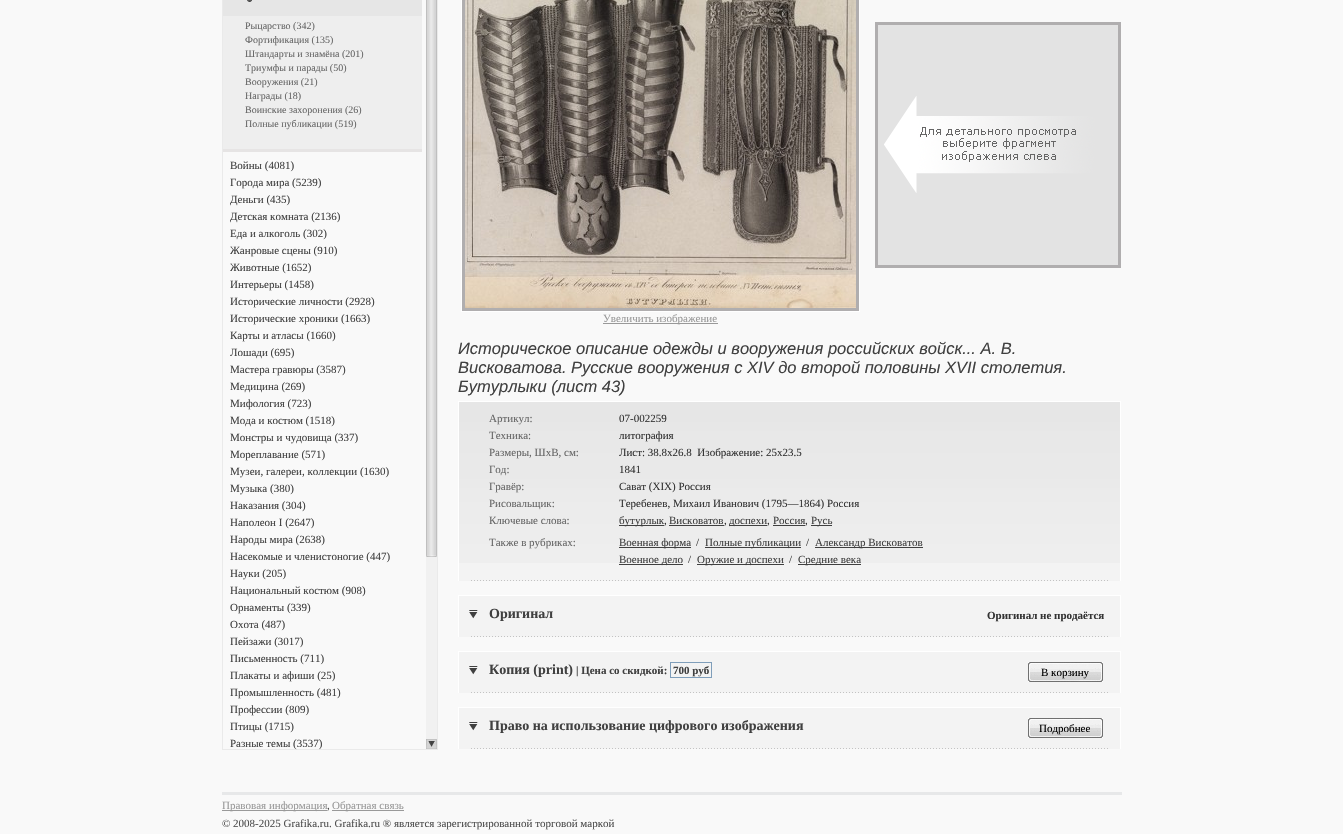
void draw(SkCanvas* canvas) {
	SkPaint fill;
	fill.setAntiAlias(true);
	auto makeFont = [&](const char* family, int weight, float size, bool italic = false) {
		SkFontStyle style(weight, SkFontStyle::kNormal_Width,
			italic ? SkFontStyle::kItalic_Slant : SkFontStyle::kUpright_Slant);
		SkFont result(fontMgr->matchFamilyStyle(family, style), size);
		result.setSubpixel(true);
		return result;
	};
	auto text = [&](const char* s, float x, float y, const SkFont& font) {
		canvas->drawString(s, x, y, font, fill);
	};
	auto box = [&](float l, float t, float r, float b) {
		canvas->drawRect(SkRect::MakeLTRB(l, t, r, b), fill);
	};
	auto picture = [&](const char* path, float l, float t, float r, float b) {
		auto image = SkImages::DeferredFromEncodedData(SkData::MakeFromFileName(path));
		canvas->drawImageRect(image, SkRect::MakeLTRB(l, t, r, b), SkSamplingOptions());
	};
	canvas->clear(0xFFF9F9F9);
	fill.setStyle(SkPaint::kStroke_Style);
	fill.setStrokeWidth(1);
	fill.setColor(0xFFEAEAEA);
	canvas->drawRect(SkRect::MakeLTRB(222.5f, -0.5f, 437.5f, 749.5f), fill);
	fill.setStyle(SkPaint::kFill_Style);
	fill.setColor(0xFFEEEEEE);
	box(223, 16, 422, 149);
	fill.setColor(0xFFE6E4E4);
	box(223, 149, 422, 152);
	fill.setColor(0xFFE6E6E6);
	box(223, 0, 422, 16);
	picture("image0.png", 247, 0, 252, 2);
	fill.setColor(0xFFF1F1F1);
	box(426, 557, 437, 739);
	picture("image1.png", 426, 0, 437, 555);
	picture("image2.png", 426, 555, 437, 557);
	picture("image3.png", 426, 739, 437, 749);
	fill.setStyle(SkPaint::kStroke_Style);
	fill.setColor(0xFFFFFFFF);
	canvas->drawRect(SkRect::MakeLTRB(461.5f, -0.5f, 859.5f, 311.5f), fill);
	fill.setStrokeWidth(3);
	fill.setColor(0xFFB0AEAF);
	canvas->drawRect(SkRect::MakeLTRB(463.5f, -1.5f, 857.5f, 309.5f), fill);
	picture("image4.png", 465, 0, 856, 308);
	picture("image5.png", 878, 25, 1118, 265);
	canvas->drawRect(SkRect::MakeLTRB(876.5f, 23.5f, 1119.5f, 266.5f), fill);
	fill.setStyle(SkPaint::kFill_Style);
	fill.setColor(0xFF999999);
	box(603, 323, 718, 324);
	fill.setColor(0xFFF3F3F3);
	box(459, 563, 1120, 581);
	picture("image6.png", 459, 402, 1120, 563);
	fill.setColor(0xFFFFFFFF);
	box(458, 401, 1121, 402);
	box(1120, 401, 1121, 581);
	box(458, 401, 459, 581);
	fill.setColor(0xFF404040);
	box(619, 525, 664, 526);
	box(669, 525, 724, 526);
	box(729, 525, 767, 526);
	box(773, 525, 805, 526);
	box(811, 525, 832, 526);
	box(619, 547, 691, 548);
	box(705, 547, 801, 548);
	box(815, 547, 923, 548);
	box(619, 564, 683, 565);
	box(697, 564, 784, 565);
	box(798, 564, 861, 565);
	picture("image7.png", 471, 580, 1108, 581);
	fill.setColor(0xFFF3F3F3);
	box(459, 596, 1120, 637);
	fill.setColor(0xFFFFFFFF);
	box(458, 595, 1121, 596);
	box(1120, 595, 1121, 637);
	box(458, 595, 459, 637);
	picture("image8.png", 469, 610, 478, 619);
	picture("image7.png", 471, 636, 1108, 637);
	fill.setColor(0xFFF3F3F3);
	box(459, 652, 1120, 693);
	fill.setColor(0xFFFFFFFF);
	box(458, 651, 1121, 652);
	box(1120, 651, 1121, 693);
	box(458, 651, 459, 693);
	picture("image8.png", 469, 666, 478, 675);
	fill.setStyle(SkPaint::kStroke_Style);
	fill.setStrokeWidth(1);
	fill.setColor(0xFF7F9EBA);
	canvas->drawRect(SkRect::MakeLTRB(670.5f, 662.5f, 711.5f, 677.5f), fill);
	picture("image9.png", 1028, 662, 1103, 682);
	picture("image7.png", 471, 692, 1108, 693);
	fill.setStyle(SkPaint::kFill_Style);
	fill.setColor(0xFFF3F3F3);
	box(459, 708, 1120, 749);
	fill.setColor(0xFFFFFFFF);
	box(458, 707, 1121, 708);
	box(1120, 707, 1121, 749);
	box(458, 707, 459, 749);
	picture("image8.png", 469, 722, 478, 731);
	picture("image9.png", 1028, 718, 1103, 738);
	picture("image7.png", 471, 748, 1108, 749);
	fill.setColor(0xFFE7E8E9);
	box(222, 792, 1122, 795);
	fill.setColor(0xFF999999);
	box(222, 810, 327, 811);
	box(332, 810, 404, 811);
	auto font1 = makeFont("Liberation Serif", 400, 10);
	fill.setColor(0xFF666666);
	text("Рыцарство (342)", 245, 29, font1);
	text("Фортификация (135)", 245, 43, font1);
	text("Штандарты и знамёна (201)", 245, 57, font1);
	text("Триумфы и парады (50)", 245, 71, font1);
	text("Вооружения (21)", 245, 85, font1);
	text("Награды (18)", 245, 99, font1);
	text("Воинские захоронения (26)", 245, 113, font1);
	text("Полные публикации (519)", 245, 127, font1);
	auto font2 = makeFont("Liberation Serif", 400, 11);
	fill.setColor(0xFF404040);
	text("Войны (4081)", 230, 169, font2);
	text("Города мира (5239)", 230, 186, font2);
	text("Деньги (435)", 230, 203, font2);
	text("Детская комната (2136)", 230, 220, font2);
	text("Еда и алкоголь (302)", 230, 237, font2);
	text("Жанровые сцены (910)", 230, 254, font2);
	text("Животные (1652)", 230, 271, font2);
	text("Интерьеры (1458)", 230, 288, font2);
	text("Исторические личности (2928)", 230, 305, font2);
	text("Исторические хроники (1663)", 230, 322, font2);
	text("Карты и атласы (1660)", 230, 339, font2);
	text("Лошади (695)", 230, 356, font2);
	text("Мастера гравюры (3587)", 230, 373, font2);
	text("Медицина (269)", 230, 390, font2);
	text("Мифология (723)", 230, 407, font2);
	text("Мода и костюм (1518)", 230, 424, font2);
	text("Монстры и чудовища (337)", 230, 441, font2);
	text("Мореплавание (571)", 230, 458, font2);
	text("Музеи, галереи, коллекции (1630)", 230, 475, font2);
	text("Музыка (380)", 230, 492, font2);
	text("Наказания (304)", 230, 509, font2);
	text("Наполеон I (2647)", 230, 526, font2);
	text("Народы мира (2638)", 230, 543, font2);
	text("Насекомые и членистоногие (447)", 230, 560, font2);
	text("Науки (205)", 230, 577, font2);
	text("Национальный костюм (908)", 230, 594, font2);
	text("Орнаменты (339)", 230, 611, font2);
	text("Охота (487)", 230, 628, font2);
	text("Пейзажи (3017)", 230, 645, font2);
	text("Письменность (711)", 230, 662, font2);
	text("Плакаты и афиши (25)", 230, 679, font2);
	text("Промышленность (481)", 230, 696, font2);
	text("Профессии (809)", 230, 713, font2);
	text("Птицы (1715)", 230, 730, font2);
	text("Разные темы (3537)", 230, 747, font2);
	fill.setColor(0xFF999999);
	text("Увеличить изображение", 603, 322, font2);
	auto font3 = makeFont("Liberation Sans", 400, 16.5f, true);
	fill.setColor(0xFF404040);
	text("Историческое описание одежды и вооружения российских войск... А. В.", 458, 354, font3);
	text("Висковатова. Русские вооружения с XIV до второй половины XVII столетия.", 458, 373, font3);
	text("Бутурлыки (лист 43)", 458, 392, font3);
	fill.setColor(0xFF666666);
	text("Артикул:", 489, 422, font2);
	fill.setColor(0xFF333333);
	text("07-002259", 619, 422, font2);
	fill.setColor(0xFF666666);
	text("Техника:", 489, 439, font2);
	fill.setColor(0xFF333333);
	text("литография", 619, 439, font2);
	fill.setColor(0xFF666666);
	text("Размеры, ШxВ, см:", 489, 456, font2);
	fill.setColor(0xFF333333);
	text("Лист: 38.8x26.8  Изображение: 25x23.5", 619, 456, font2);
	fill.setColor(0xFF666666);
	text("Год:", 489, 473, font2);
	fill.setColor(0xFF333333);
	text("1841", 619, 473, font2);
	fill.setColor(0xFF666666);
	text("Гравёр:", 489, 490, font2);
	fill.setColor(0xFF333333);
	text("Сават (XIX) Россия", 619, 490, font2);
	fill.setColor(0xFF666666);
	text("Рисовальщик:", 489, 507, font2);
	fill.setColor(0xFF333333);
	text("Теребенев, Михаил Иванович (1795—1864) Россия", 619, 507, font2);
	fill.setColor(0xFF666666);
	text("Ключевые слова:", 489, 524, font2);
	fill.setColor(0xFF404040);
	text("бутурлык", 619, 524, font2);
	fill.setColor(0xFF333333);
	text(",", 664, 524, font2);
	fill.setColor(0xFF404040);
	text("Висковатов", 669, 524, font2);
	fill.setColor(0xFF333333);
	text(",", 724, 524, font2);
	fill.setColor(0xFF404040);
	text("доспехи", 729, 524, font2);
	fill.setColor(0xFF333333);
	text(",", 767, 524, font2);
	fill.setColor(0xFF404040);
	text("Россия", 773, 524, font2);
	fill.setColor(0xFF333333);
	text(",", 805, 524, font2);
	fill.setColor(0xFF404040);
	text("Русь", 811, 524, font2);
	fill.setColor(0xFF666666);
	text("Также в рубриках:", 489, 546, font2);
	fill.setColor(0xFF404040);
	text("Военная форма", 619, 546, font2);
	fill.setColor(0xFF333333);
	text("/", 696, 546, font2);
	fill.setColor(0xFF404040);
	text("Полные публикации", 705, 546, font2);
	fill.setColor(0xFF333333);
	text("/", 806, 546, font2);
	fill.setColor(0xFF404040);
	text("Александр Висковатов", 815, 546, font2);
	text("Военное дело", 619, 563, font2);
	fill.setColor(0xFF333333);
	text("/", 688, 563, font2);
	fill.setColor(0xFF404040);
	text("Оружие и доспехи", 697, 563, font2);
	fill.setColor(0xFF333333);
	text("/", 789, 563, font2);
	fill.setColor(0xFF404040);
	text("Средние века", 798, 563, font2);
	auto font4 = makeFont("Liberation Serif", 700, 14);
	text("Оригинал", 489, 618, font4);
	auto font5 = makeFont("Liberation Serif", 700, 11);
	fill.setColor(0xFF333333);
	text("Оригинал не продаётся", 987, 619, font5);
	fill.setColor(0xFF404040);
	text("Копия (print)", 489, 674, font4);
	text("| Цена со скидкой:", 576, 674, font5);
	text("700 руб", 673, 674, font5);
	fill.setColor(0xFF000000);
	text("В корзину", 1041, 676, font2);
	fill.setColor(0xFF404040);
	text("Право на использование цифрового изображения", 489, 730, font4);
	fill.setColor(0xFF000000);
	text("Подробнее", 1039, 732, font2);
	fill.setColor(0xFF999999);
	text("Правовая информация", 222, 809, font2);
	fill.setColor(0xFF4E4E4E);
	text(",", 327, 809, font2);
	fill.setColor(0xFF999999);
	text("Обратная связь", 332, 809, font2);
	fill.setColor(0xFF4E4E4E);
	text("© 2008-2025 Grafika.ru. Grafika.ru ® является зарегистрированной торговой маркой", 222, 827, font2);
}
